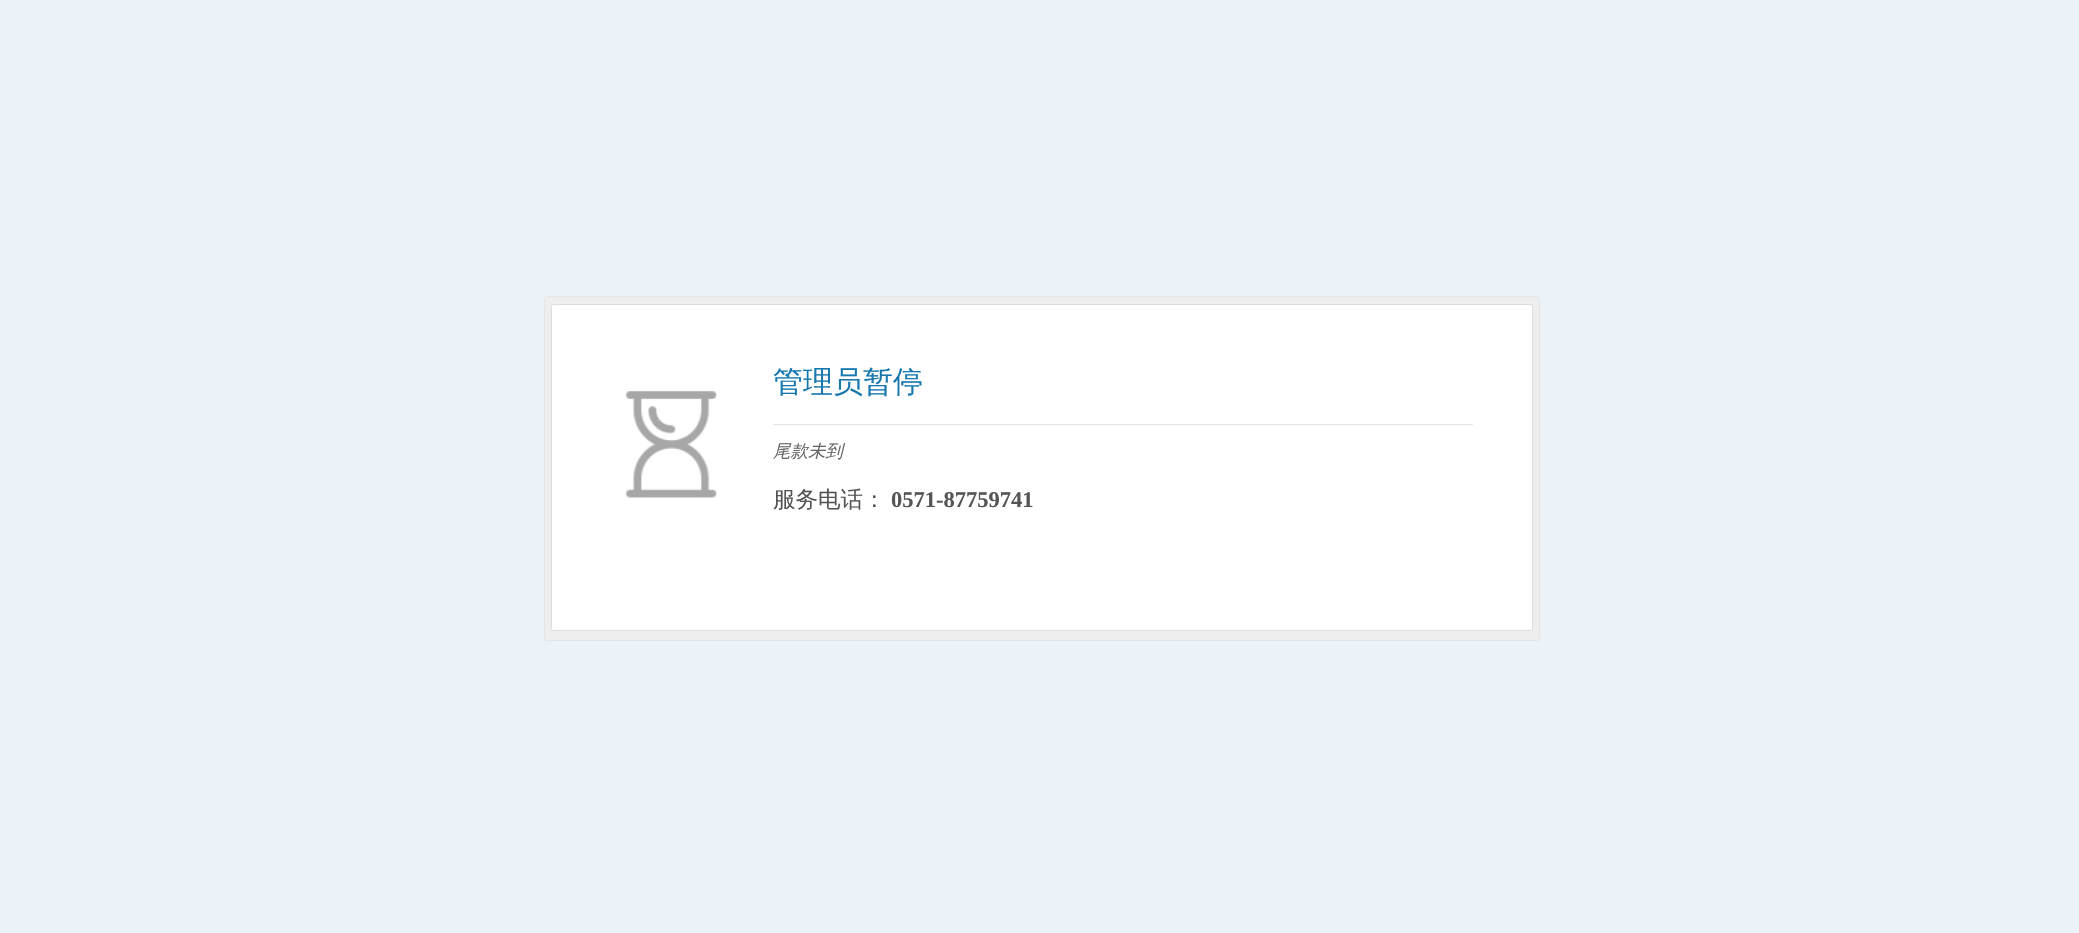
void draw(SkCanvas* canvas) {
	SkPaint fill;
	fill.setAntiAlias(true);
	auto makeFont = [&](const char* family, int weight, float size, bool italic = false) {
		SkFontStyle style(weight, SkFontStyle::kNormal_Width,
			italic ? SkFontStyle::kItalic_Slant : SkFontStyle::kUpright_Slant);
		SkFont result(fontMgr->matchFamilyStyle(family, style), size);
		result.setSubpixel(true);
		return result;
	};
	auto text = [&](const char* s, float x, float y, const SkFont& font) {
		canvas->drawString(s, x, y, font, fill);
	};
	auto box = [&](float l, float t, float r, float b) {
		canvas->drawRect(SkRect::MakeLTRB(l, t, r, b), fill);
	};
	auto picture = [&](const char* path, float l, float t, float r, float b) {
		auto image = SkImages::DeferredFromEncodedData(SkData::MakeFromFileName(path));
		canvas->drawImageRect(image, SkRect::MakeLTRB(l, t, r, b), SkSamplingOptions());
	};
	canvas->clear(0xFFECF3F8);
	fill.setColor(0xFFEEEEEE);
	canvas->drawRoundRect(SkRect::MakeLTRB(544.5f, 296.5f, 1539.5f, 640.5f), 2, 2, fill);
	fill.setStyle(SkPaint::kStroke_Style);
	fill.setStrokeWidth(1);
	fill.setColor(0xFFE5E5E5);
	canvas->drawRoundRect(SkRect::MakeLTRB(544.5f, 296.5f, 1539.5f, 640.5f), 2, 2, fill);
	fill.setStyle(SkPaint::kFill_Style);
	fill.setColor(0xFFFFFFFF);
	canvas->drawRoundRect(SkRect::MakeLTRB(551.5f, 304.5f, 1532.5f, 630.5f), 2, 2, fill);
	fill.setStyle(SkPaint::kStroke_Style);
	fill.setColor(0xFFDCDCDC);
	canvas->drawRoundRect(SkRect::MakeLTRB(551.5f, 304.5f, 1532.5f, 630.5f), 2, 2, fill);
	picture("image0.png", 626, 391, 717, 498);
	fill.setStyle(SkPaint::kFill_Style);
	fill.setColor(0xFFE5E5E5);
	box(773, 424, 1473, 425);
	auto font1 = makeFont("WenQuanYi Zen Hei", 500, 30);
	fill.setColor(0xFF1778AF);
	text("管理员暂停", 773, 392, font1);
	auto font2 = makeFont("WenQuanYi Zen Hei", 500, 17.5f, true);
	fill.setColor(0xFF666666);
	text("尾款未到", 773, 457, font2);
	auto font3 = makeFont("WenQuanYi Zen Hei", 500, 22.5f);
	fill.setColor(0xFF555555);
	text("服务电话：", 773, 507, font3);
	auto font4 = makeFont("Liberation Serif", 700, 22.5f);
	text("0571-87759741", 891, 507, font4);
}
